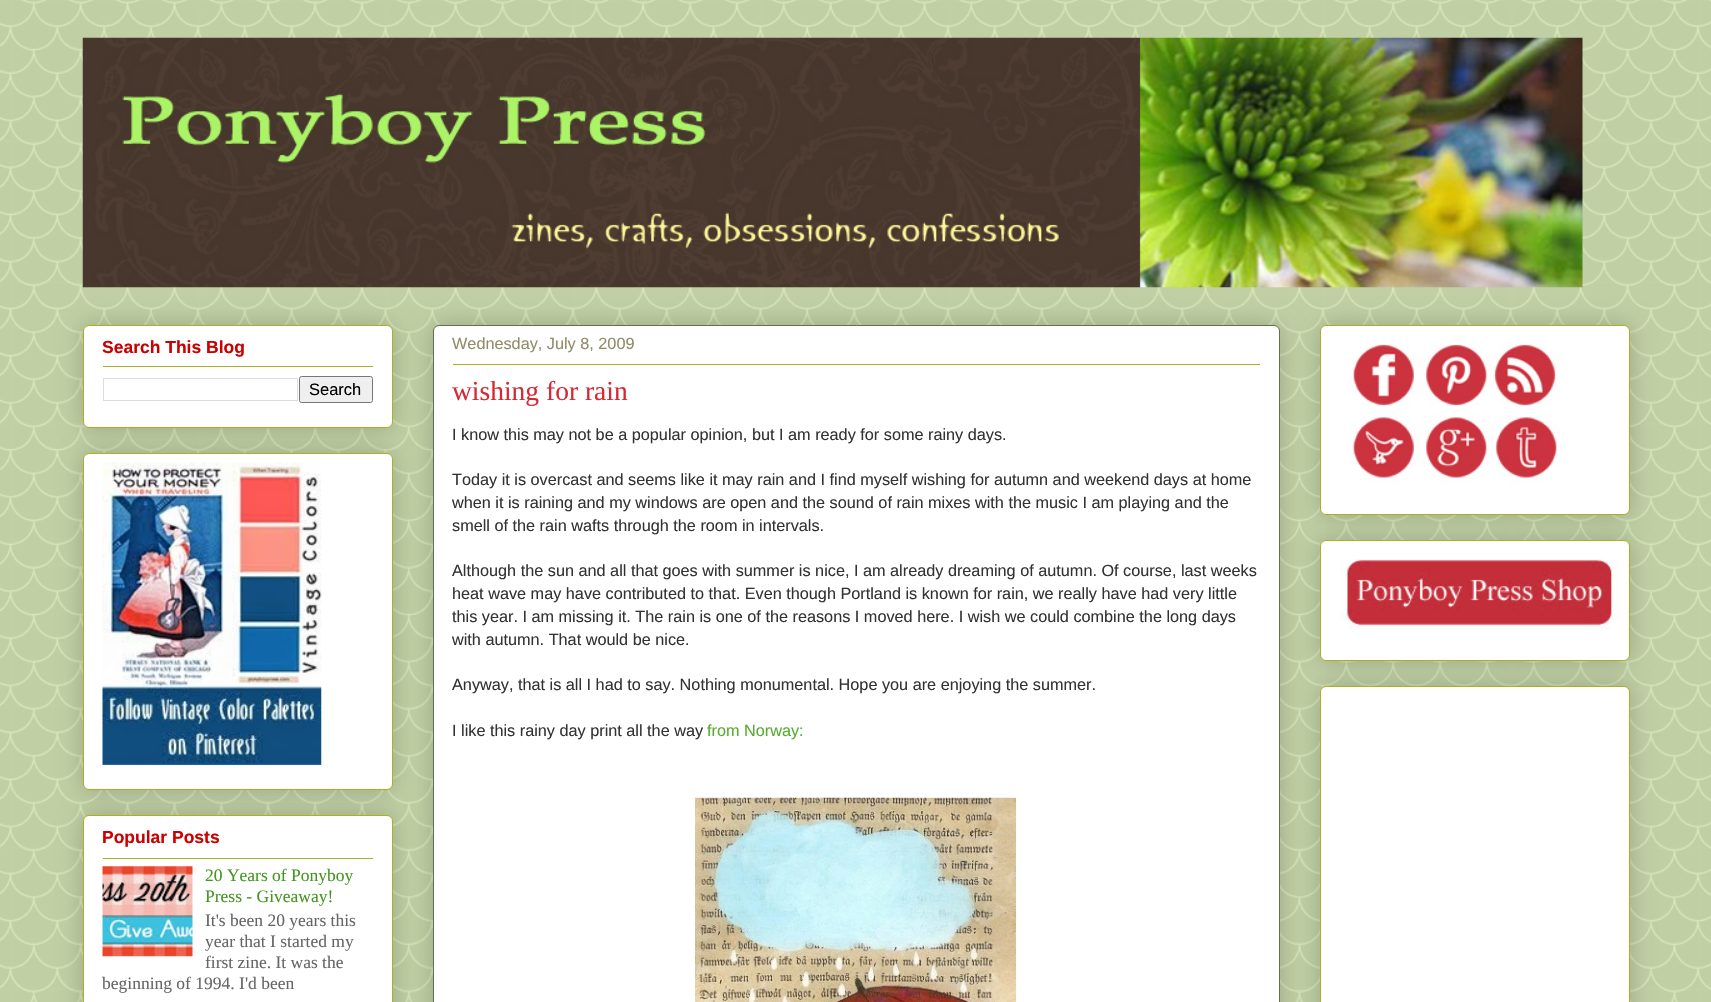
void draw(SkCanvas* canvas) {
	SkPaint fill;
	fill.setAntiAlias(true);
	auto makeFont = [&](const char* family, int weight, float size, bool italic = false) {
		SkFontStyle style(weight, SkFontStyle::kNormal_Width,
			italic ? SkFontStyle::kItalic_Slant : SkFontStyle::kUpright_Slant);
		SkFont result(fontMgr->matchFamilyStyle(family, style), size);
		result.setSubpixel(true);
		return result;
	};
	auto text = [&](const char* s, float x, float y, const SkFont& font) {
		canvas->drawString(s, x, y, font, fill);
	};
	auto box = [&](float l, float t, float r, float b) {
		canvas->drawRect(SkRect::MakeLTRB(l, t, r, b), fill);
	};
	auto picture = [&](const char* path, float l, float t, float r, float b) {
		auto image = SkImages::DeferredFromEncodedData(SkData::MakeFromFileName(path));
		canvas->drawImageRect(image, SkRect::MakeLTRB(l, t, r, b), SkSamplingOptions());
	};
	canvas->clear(0xFFD6E7B7);
	picture("image0.png", 0, 0, 1711, 1002);
	picture("image1.png", 82, 37, 1583, 288);
	fill.setColor(0x33000000);
	fill.setMaskFilter(SkMaskFilter::MakeBlur(kNormal_SkBlurStyle, 12.5f));
	canvas->drawRoundRect(SkRect::MakeLTRB(83, 325, 393, 428), 6, 6, fill);
	fill.setMaskFilter(nullptr);
	fill.setColor(0xFFFFFFFF);
	canvas->drawRoundRect(SkRect::MakeLTRB(83.5f, 325.5f, 392.5f, 427.5f), 5.5f, 5.5f, fill);
	fill.setStyle(SkPaint::kStroke_Style);
	fill.setStrokeWidth(1);
	fill.setColor(0xFFAAB122);
	canvas->drawRoundRect(SkRect::MakeLTRB(83.5f, 325.5f, 392.5f, 427.5f), 5.5f, 5.5f, fill);
	fill.setStyle(SkPaint::kFill_Style);
	box(103, 366, 373, 367);
	fill.setStyle(SkPaint::kStroke_Style);
	fill.setColor(0xFFDDDDDD);
	canvas->drawRect(SkRect::MakeLTRB(103.5f, 378.5f, 297.5f, 400.5f), fill);
	fill.setStyle(SkPaint::kFill_Style);
	fill.setColor(0xFFEFEFEF);
	canvas->drawRoundRect(SkRect::MakeLTRB(299.5f, 376.5f, 372.5f, 402.5f), 2, 2, fill);
	fill.setStyle(SkPaint::kStroke_Style);
	fill.setColor(0xFF767676);
	canvas->drawRoundRect(SkRect::MakeLTRB(299.5f, 376.5f, 372.5f, 402.5f), 2, 2, fill);
	fill.setStyle(SkPaint::kFill_Style);
	fill.setColor(0x33000000);
	fill.setMaskFilter(SkMaskFilter::MakeBlur(kNormal_SkBlurStyle, 12.5f));
	canvas->drawRoundRect(SkRect::MakeLTRB(83, 453, 393, 790), 6, 6, fill);
	fill.setMaskFilter(nullptr);
	fill.setColor(0xFFFFFFFF);
	canvas->drawRoundRect(SkRect::MakeLTRB(83.5f, 453.5f, 392.5f, 789.5f), 5.5f, 5.5f, fill);
	fill.setStyle(SkPaint::kStroke_Style);
	fill.setColor(0xFFAAB122);
	canvas->drawRoundRect(SkRect::MakeLTRB(83.5f, 453.5f, 392.5f, 789.5f), 5.5f, 5.5f, fill);
	picture("image2.png", 102, 462, 322, 765);
	fill.setStyle(SkPaint::kFill_Style);
	fill.setColor(0x33000000);
	fill.setMaskFilter(SkMaskFilter::MakeBlur(kNormal_SkBlurStyle, 12.5f));
	canvas->drawRoundRect(SkRect::MakeLTRB(83, 815, 393, 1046), 6, 6, fill);
	fill.setMaskFilter(nullptr);
	fill.setColor(0xFFFFFFFF);
	canvas->drawRoundRect(SkRect::MakeLTRB(83.5f, 815.5f, 392.5f, 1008.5f), 5.5f, 5.5f, fill);
	fill.setStyle(SkPaint::kStroke_Style);
	fill.setColor(0xFFAAB122);
	canvas->drawRoundRect(SkRect::MakeLTRB(83.5f, 815.5f, 392.5f, 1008.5f), 5.5f, 5.5f, fill);
	fill.setStyle(SkPaint::kFill_Style);
	box(103, 858, 373, 859);
	picture("image3.png", 102, 866, 193, 957);
	fill.setColor(0x33000000);
	fill.setMaskFilter(SkMaskFilter::MakeBlur(kNormal_SkBlurStyle, 12.5f));
	canvas->drawRoundRect(SkRect::MakeLTRB(433, 325, 1280, 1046), 6, 6, fill);
	fill.setMaskFilter(nullptr);
	fill.setColor(0xFFFFFFFF);
	canvas->drawRoundRect(SkRect::MakeLTRB(433.5f, 325.5f, 1279.5f, 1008.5f), 5.5f, 5.5f, fill);
	fill.setStyle(SkPaint::kStroke_Style);
	fill.setColor(0xFF63704B);
	canvas->drawRoundRect(SkRect::MakeLTRB(433.5f, 325.5f, 1279.5f, 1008.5f), 5.5f, 5.5f, fill);
	fill.setStyle(SkPaint::kFill_Style);
	fill.setColor(0xFFAAB122);
	box(453, 364, 1260, 365);
	picture("image4.png", 695, 797, 1017, 1002);
	fill.setColor(0x33000000);
	fill.setMaskFilter(SkMaskFilter::MakeBlur(kNormal_SkBlurStyle, 12.5f));
	canvas->drawRoundRect(SkRect::MakeLTRB(1320, 325, 1630, 515), 6, 6, fill);
	fill.setMaskFilter(nullptr);
	fill.setColor(0xFFFFFFFF);
	canvas->drawRoundRect(SkRect::MakeLTRB(1320.5f, 325.5f, 1629.5f, 514.5f), 5.5f, 5.5f, fill);
	fill.setStyle(SkPaint::kStroke_Style);
	fill.setColor(0xFFAAB122);
	canvas->drawRoundRect(SkRect::MakeLTRB(1320.5f, 325.5f, 1629.5f, 514.5f), 5.5f, 5.5f, fill);
	picture("image5.png", 1350, 344, 1560, 485);
	fill.setStyle(SkPaint::kFill_Style);
	fill.setColor(0x33000000);
	fill.setMaskFilter(SkMaskFilter::MakeBlur(kNormal_SkBlurStyle, 12.5f));
	canvas->drawRoundRect(SkRect::MakeLTRB(1320, 540, 1630, 661), 6, 6, fill);
	fill.setMaskFilter(nullptr);
	fill.setColor(0xFFFFFFFF);
	canvas->drawRoundRect(SkRect::MakeLTRB(1320.5f, 540.5f, 1629.5f, 660.5f), 5.5f, 5.5f, fill);
	fill.setStyle(SkPaint::kStroke_Style);
	fill.setColor(0xFFAAB122);
	canvas->drawRoundRect(SkRect::MakeLTRB(1320.5f, 540.5f, 1629.5f, 660.5f), 5.5f, 5.5f, fill);
	picture("image6.png", 1340, 559, 1620, 630);
	fill.setStyle(SkPaint::kFill_Style);
	fill.setColor(0x33000000);
	fill.setMaskFilter(SkMaskFilter::MakeBlur(kNormal_SkBlurStyle, 12.5f));
	canvas->drawRoundRect(SkRect::MakeLTRB(1320, 686, 1630, 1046), 6, 6, fill);
	fill.setMaskFilter(nullptr);
	fill.setColor(0xFFFFFFFF);
	canvas->drawRoundRect(SkRect::MakeLTRB(1320.5f, 686.5f, 1629.5f, 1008.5f), 5.5f, 5.5f, fill);
	fill.setStyle(SkPaint::kStroke_Style);
	fill.setColor(0xFFAAB122);
	canvas->drawRoundRect(SkRect::MakeLTRB(1320.5f, 686.5f, 1629.5f, 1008.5f), 5.5f, 5.5f, fill);
	auto font1 = makeFont("Liberation Sans", 700, 17.5f);
	fill.setStyle(SkPaint::kFill_Style);
	fill.setColor(0xFFCC0000);
	text("Search This Blog", 102, 353, font1);
	auto font2 = makeFont("Liberation Sans", 400, 16.5f);
	fill.setColor(0xFF000000);
	text("Search", 309, 395, font2);
	fill.setColor(0xFFCC0000);
	text("Popular Posts", 102, 843, font1);
	auto font3 = makeFont("Liberation Serif", 400, 17.5f);
	fill.setColor(0xFF439620);
	text("20 Years of Ponyboy", 205, 881, font3);
	text("Press - Giveaway!", 205, 902, font3);
	fill.setColor(0xFF666666);
	text("It's been 20 years this", 205, 926, font3);
	text("year that I started my", 205, 947, font3);
	text("first zine. It was the", 205, 968, font3);
	text("beginning of 1994. I'd been", 102, 989, font3);
	auto font4 = makeFont("Liberation Sans", 400, 16.25f);
	fill.setColor(0xFF908C6A);
	text("Wednesday, July 8, 2009", 452, 349, font4);
	auto font5 = makeFont("Liberation Serif", 400, 27.5f);
	fill.setColor(0xFFD52A33);
	text("wishing for rain", 452, 400, font5);
	fill.setColor(0xFF333333);
	text("I know this may not be a popular opinion, but I am ready for some rainy days.", 452, 440, font4);
	text("Today it is overcast and seems like it may rain and I find myself wishing for autumn and weekend days at home", 452, 485, font4);
	text("when it is raining and my windows are open and the sound of rain mixes with the music I am playing and the", 452, 508, font4);
	text("smell of the rain wafts through the room in intervals.", 452, 531, font4);
	text("Although the sun and all that goes with summer is nice, I am already dreaming of autumn. Of course, last weeks", 452, 576, font4);
	text("heat wave may have contributed to that. Even though Portland is known for rain, we really have had very little", 452, 599, font4);
	text("this year. I am missing it. The rain is one of the reasons I moved here. I wish we could combine the long days", 452, 622, font4);
	text("with autumn. That would be nice.", 452, 645, font4);
	text("Anyway, that is all I had to say. Nothing monumental. Hope you are enjoying the summer.", 452, 690, font4);
	text("I like this rainy day print all the way", 452, 736, font4);
	fill.setColor(0xFF54AC2D);
	text("from Norway:", 707, 736, font4);
}
